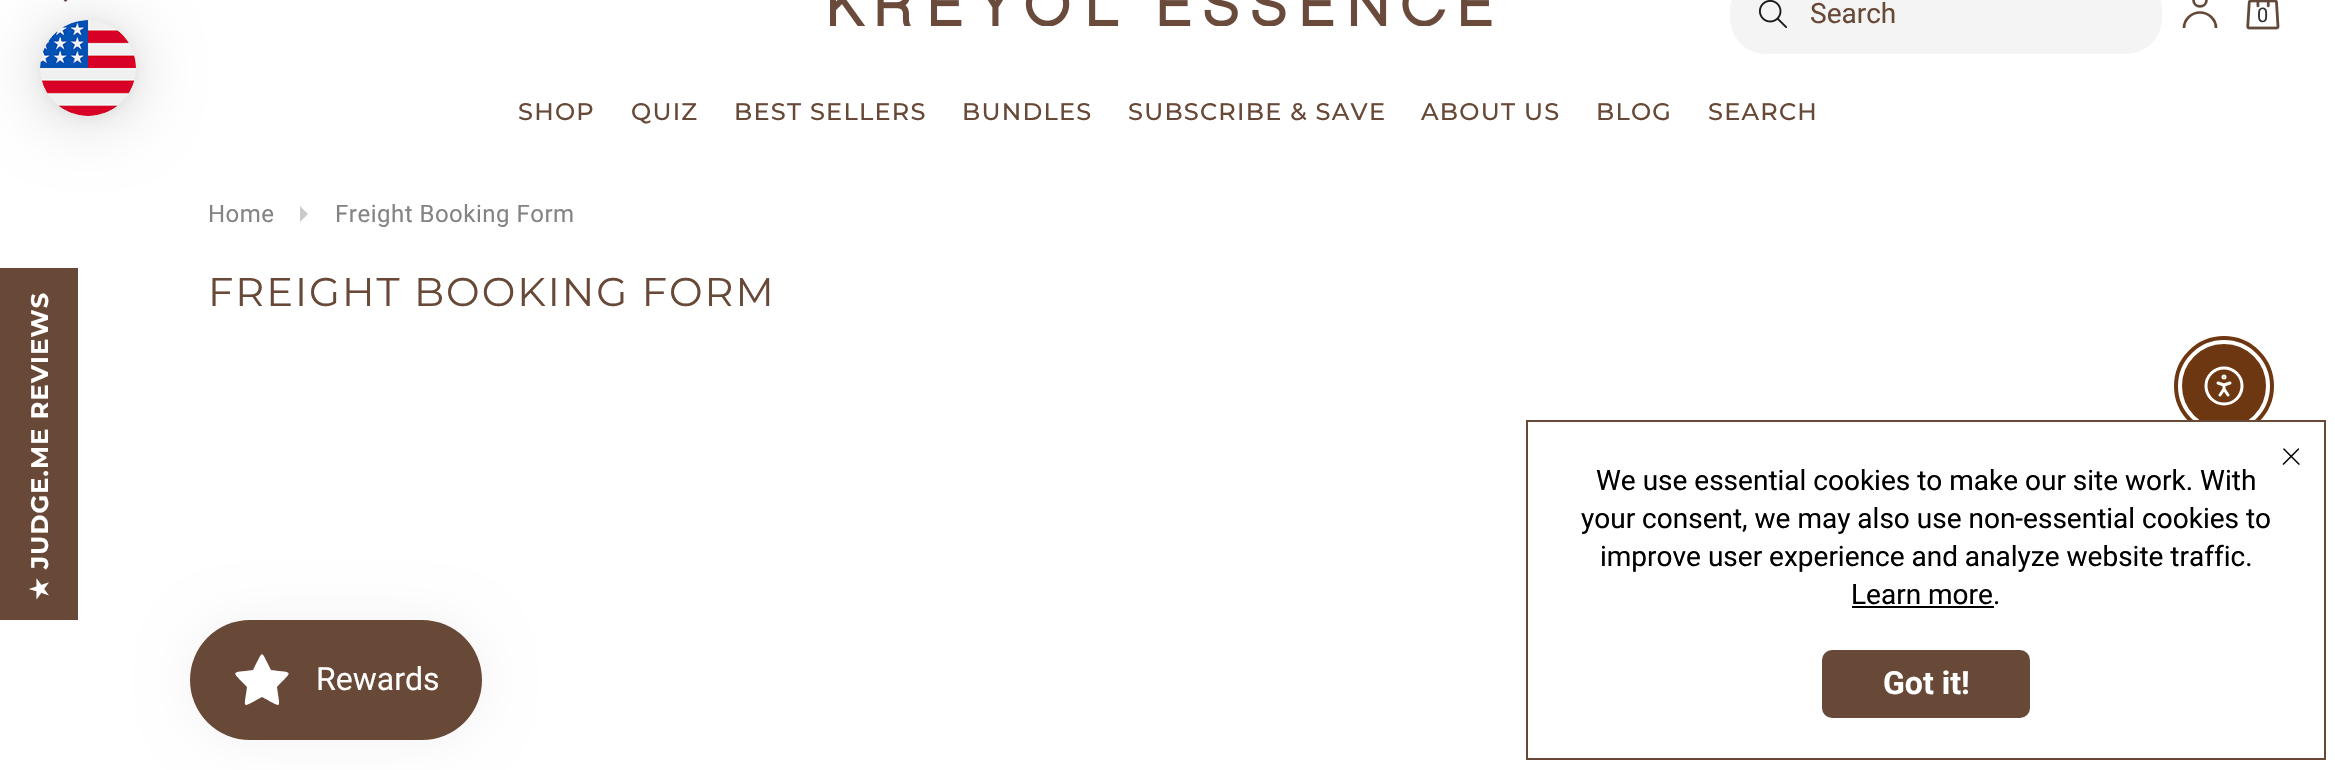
void draw(SkCanvas* canvas) {
	SkPaint fill;
	fill.setAntiAlias(true);
	auto makeFont = [&](const char* family, int weight, float size, bool italic = false) {
		SkFontStyle style(weight, SkFontStyle::kNormal_Width,
			italic ? SkFontStyle::kItalic_Slant : SkFontStyle::kUpright_Slant);
		SkFont result(fontMgr->matchFamilyStyle(family, style), size);
		result.setSubpixel(true);
		return result;
	};
	auto text = [&](const char* s, float x, float y, const SkFont& font) {
		canvas->drawString(s, x, y, font, fill);
	};
	auto spacedText = [&](const char* s, float x, float y, const SkFont& font, const SkPaint& ink, float letter, float word) {
		std::vector<SkGlyphID> glyphs(font.countText(s, strlen(s), SkTextEncoding::kUTF8));
		std::vector<float> xs(glyphs.size());
		font.textToGlyphs(s, strlen(s), SkTextEncoding::kUTF8, glyphs);
		font.getXPos(glyphs, xs, x);
		float extra = 0;
		for (size_t i = 0; i < glyphs.size(); i++) {
			xs[i] += extra;
			extra += letter + word * (glyphs[i] == font.unicharToGlyph(' '));
		}
		canvas->drawTextBlob(SkTextBlob::MakeFromPosHGlyphs(glyphs, xs, y, font), 0, 0, ink);
	};
	auto box = [&](float l, float t, float r, float b) {
		canvas->drawRect(SkRect::MakeLTRB(l, t, r, b), fill);
	};
	auto roundBox = [&](float l, float t, float r, float b, float radius) {
		canvas->drawRoundRect(SkRect::MakeLTRB(l, t, r, b), radius, radius, fill);
	};
	auto picture = [&](const char* path, float l, float t, float r, float b) {
		auto image = SkImages::DeferredFromEncodedData(SkData::MakeFromFileName(path));
		canvas->drawImageRect(image, SkRect::MakeLTRB(l, t, r, b), SkSamplingOptions());
	};
	canvas->clear(0xFFFFFFFF);
	picture("image1.png", 63, 0, 68, 2);
	fill.setColor(0x29000000);
	fill.setMaskFilter(SkMaskFilter::MakeBlur(kNormal_SkBlurStyle, 32));
	canvas->drawRoundRect(SkRect::MakeLTRB(40, 24, 136, 120), 48, 48, fill);
	fill.setMaskFilter(nullptr);
	fill.setColor(0x0F000000);
	fill.setMaskFilter(SkMaskFilter::MakeBlur(kNormal_SkBlurStyle, 6));
	canvas->drawRoundRect(SkRect::MakeLTRB(40, 22, 136, 118), 48, 48, fill);
	fill.setMaskFilter(nullptr);
	picture("image0.png", 40, 20, 136, 116);
	picture("image2.png", 830, 0, 1492, 26);
	fill.setColor(0xFFF4F4F4);
	roundBox(1730, -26, 2162, 54, 36);
	picture("image3.png", 1758, 0, 1787, 28);
	fill.setStyle(SkPaint::kStroke_Style);
	fill.setStrokeWidth(2.7f);
	fill.setColor(0xFF634939);
	canvas->drawPath(SkPathBuilder().moveTo(2206.5f, 0).cubicTo(2206.5f, 8.5f, 2193.5f, 8.5f, 2193.5f, 0).cubicTo(2193.5f, -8.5f, 2206.5f, -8.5f, 2206.5f, 0).close().detach(), fill);
	fill.setStrokeJoin(SkPaint::kRound_Join);
	canvas->drawPath(SkPathBuilder().moveTo(2216, 28).cubicTo(2216, 19.5f, 2208.5f, 12.5f, 2200, 12.5f).cubicTo(2191.5f, 12.5f, 2184, 19.5f, 2184, 28).detach(), fill);
	picture("image4.png", 2246, 0, 2280, 30);
	fill.setStyle(SkPaint::kFill_Style);
	fill.setColor(0xFFCBCBCB);
	canvas->drawPath(SkPathBuilder().moveTo(300, 222).lineTo(300, 206).lineTo(308, 214).close().detach(), fill);
	fill.setColor(0xFF684836);
	box(0, 268, 78, 620);
	fill.setStyle(SkPaint::kStroke_Style);
	fill.setStrokeWidth(4);
	fill.setStrokeJoin(SkPaint::kMiter_Join);
	fill.setColor(0xFF6D3712);
	canvas->drawCircle(2224, 386, 48, fill);
	fill.setStyle(SkPaint::kFill_Style);
	canvas->drawCircle(2224, 386, 41, fill);
	fill.setStyle(SkPaint::kStroke_Style);
	fill.setStrokeWidth(2);
	canvas->drawCircle(2224, 386, 41, fill);
	fill.setStrokeWidth(3);
	fill.setColor(0xFFFFFFFF);
	canvas->drawCircle(2224, 386, 18, fill);
	fill.setStrokeCap(SkPaint::kRound_Cap);
	fill.setStrokeJoin(SkPaint::kRound_Join);
	canvas->drawPath(SkPathBuilder().moveTo(2220, 395).lineTo(2224, 389).lineTo(2228, 395).moveTo(2224, 389).lineTo(2224, 385).lineTo(2230, 383).moveTo(2218, 383).lineTo(2224, 385).detach(), fill);
	fill.setStrokeCap(SkPaint::kButt_Cap);
	fill.setStrokeJoin(SkPaint::kMiter_Join);
	canvas->drawCircle(2224, 377, 1, fill);
	fill.setStyle(SkPaint::kFill_Style);
	fill.setColor(0x0D000000);
	fill.setMaskFilter(SkMaskFilter::MakeBlur(kNormal_SkBlurStyle, 25));
	canvas->drawRoundRect(SkRect::MakeLTRB(190, 620, 482, 740), 60, 60, fill);
	fill.setMaskFilter(nullptr);
	fill.setColor(0xFF684836);
	roundBox(190, 620, 482, 740, 60);
	fill.setColor(0xFFFFFFFF);
	canvas->drawPath(SkPathBuilder().moveTo(262, 697).cubicTo(241, 708, 244, 710, 247, 687).cubicTo(231, 670, 230, 673, 253, 670).cubicTo(264, 649, 260, 649, 271, 670).cubicTo(294, 673, 293, 670, 277, 687).cubicTo(280, 710, 283, 708, 262, 697).close().detach(), fill);
	fill.setStyle(SkPaint::kStroke_Style);
	fill.setStrokeWidth(2);
	fill.setColor(0xFF684836);
	canvas->drawRect(SkRect::MakeLTRB(1527, 421, 2325, 759), fill);
	fill.setStyle(SkPaint::kFill_Style);
	fill.setColor(0xFFFFFFFF);
	box(2189, 422, 2259, 436);
	picture("image5.png", 2282, 448, 2300, 465);
	fill.setColor(0xFF000000);
	box(1852, 606, 1994, 608);
	fill.setColor(0xFF684836);
	roundBox(1822, 650, 2030, 718, 10);
	auto font1 = makeFont("Roboto", 400, 28);
	text("Search", 1810, 23, font1);
	auto font2 = makeFont("Roboto", 400, 20);
	fill.setColor(0xFF323232);
	text("0", 2257, 22, font2);
	auto font3 = makeFont("Montserrat", 500, 24);
	fill.setColor(0xFF684836);
	spacedText("SHOP", 518, 120, font3, fill, 1.25f, 0);
	spacedText("QUIZ", 631, 120, font3, fill, 1.25f, 0);
	spacedText("BEST SELLERS", 734, 120, font3, fill, 1.25f, 0);
	spacedText("BUNDLES", 962, 120, font3, fill, 1.25f, 0);
	spacedText("SUBSCRIBE & SAVE", 1128, 120, font3, fill, 1.25f, 0);
	spacedText("ABOUT US", 1421, 120, font3, fill, 1.25f, 0);
	spacedText("BLOG", 1596, 120, font3, fill, 1.25f, 0);
	spacedText("SEARCH", 1708, 120, font3, fill, 1.25f, 0);
	auto font4 = makeFont("Roboto", 400, 24);
	fill.setColor(0xFF848484);
	spacedText("Home", 208, 222, font4, fill, 0.5f, 0);
	spacedText("Freight Booking Form", 335, 222, font4, fill, 0.5f, 0);
	auto font5 = makeFont("Montserrat", 400, 40);
	fill.setColor(0xFF684836);
	spacedText("FREIGHT BOOKING FORM", 208, 306, font5, fill, 2, 0);
	auto font6 = makeFont("Montserrat", 700, 24);
	fill.setColor(0xFFFFFFFF);
	canvas->save();
	canvas->rotate(-90, 48, 569);
	spacedText("JUDGE.ME REVIEWS", 48, 569, font6, fill, 1.25f, 0);
	canvas->restore();
	auto font7 = makeFont("DejaVu Sans", 700, 24);
	canvas->save();
	canvas->rotate(-90, 48, 600);
	spacedText("★", 48, 600, font7, fill, 1.25f, 0);
	canvas->restore();
	auto font8 = makeFont("Roboto", 400, 32);
	text("Rewards", 316, 690, font8);
	fill.setColor(0xFF000000);
	text("We use essential cookies to make our site work. With", 1596, 490, font1);
	text("your consent, we may also use non-essential cookies to", 1581, 528, font1);
	text("improve user experience and analyze website traffic.", 1600, 566, font1);
	text("Learn more.", 1851, 604, font1);
	auto font9 = makeFont("Roboto", 700, 32);
	fill.setColor(0xFFFFFFFF);
	text("Got it!", 1883, 694, font9);
}
